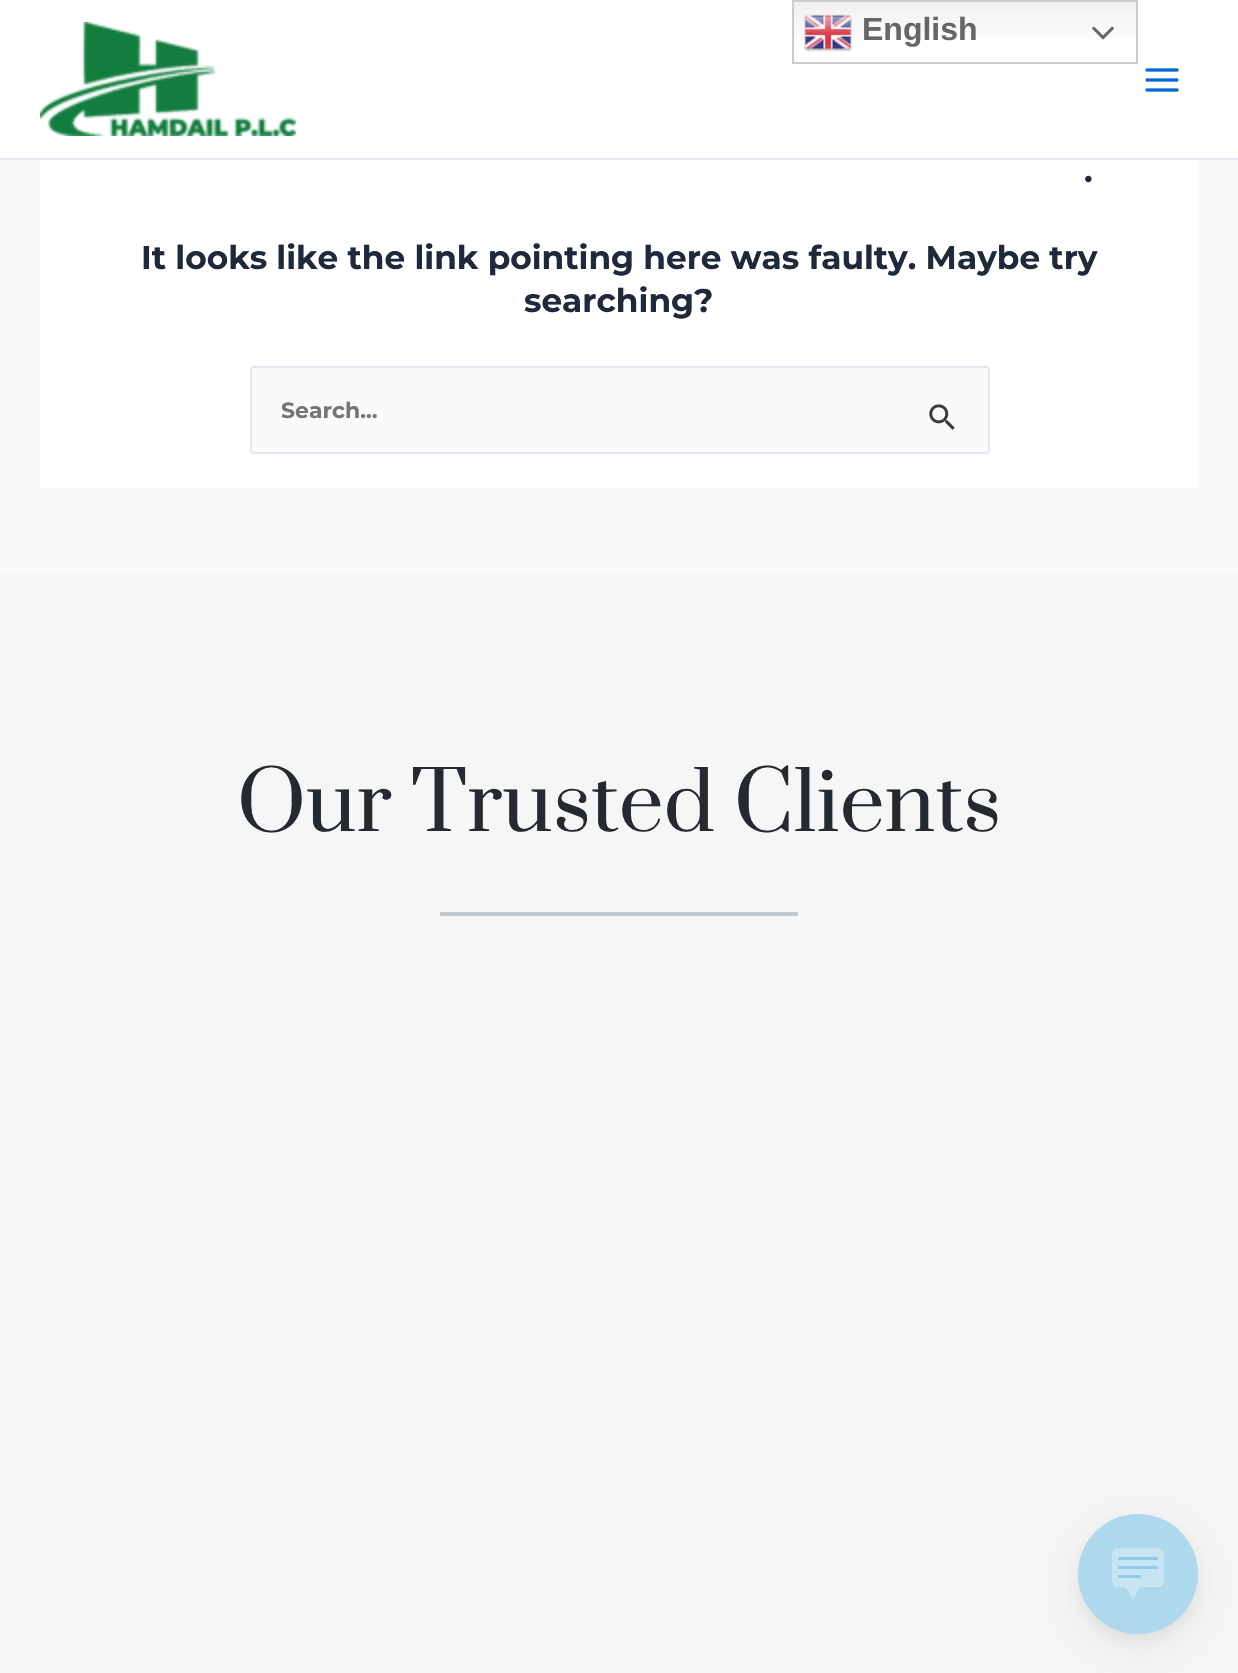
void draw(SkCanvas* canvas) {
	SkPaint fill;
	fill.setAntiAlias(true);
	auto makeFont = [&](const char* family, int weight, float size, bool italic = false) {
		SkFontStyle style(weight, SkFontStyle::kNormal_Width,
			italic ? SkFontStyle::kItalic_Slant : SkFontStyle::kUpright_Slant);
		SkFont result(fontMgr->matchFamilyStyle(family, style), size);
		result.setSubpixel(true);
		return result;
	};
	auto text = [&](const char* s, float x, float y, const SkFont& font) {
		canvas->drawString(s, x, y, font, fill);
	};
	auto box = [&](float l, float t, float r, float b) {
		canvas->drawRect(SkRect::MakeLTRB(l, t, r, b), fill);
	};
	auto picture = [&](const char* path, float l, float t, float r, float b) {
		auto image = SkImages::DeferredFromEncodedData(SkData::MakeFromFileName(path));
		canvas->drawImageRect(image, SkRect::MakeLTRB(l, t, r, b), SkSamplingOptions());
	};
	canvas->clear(0xFFF9FAFB);
	fill.setColor(0xFFFFFFFF);
	box(0, 0, 1238, 158);
	{
		const SkColor colors[] = {0xFFEFEFEF, 0xFFFFFFFF};
		const float stops[] = {0, 0.7f};
		const SkPoint ends[] = {{965, 0}, {965, 64}};
		fill.setShader(SkGradientShader::MakeLinear(ends, colors, stops, 2, SkTileMode::kClamp));
		fill.setAlpha(255);
	}
	box(794, 2, 1136, 38);
	fill.setStyle(SkPaint::kStroke_Style);
	fill.setStrokeWidth(2);
	fill.setShader(nullptr);
	fill.setColor(0xFFCCCCCC);
	canvas->drawRect(SkRect::MakeLTRB(793, 1, 1137, 63), fill);
	picture("image0.png", 804, 14, 852, 52);
	picture("image1.png", 1092, 26, 1114, 40);
	fill.setStyle(SkPaint::kFill_Style);
	fill.setColor(0xFFE2E8F0);
	box(0, 158, 1238, 160);
	picture("image2.png", 40, 22, 296, 136);
	picture("image3.png", 1145, 68, 1179, 92);
	fill.setColor(0xFFFFFFFF);
	box(40, 160, 1198, 488);
	fill.setColor(0xFFFAFAFA);
	canvas->drawRoundRect(SkRect::MakeLTRB(251, 367, 989, 453), 3, 3, fill);
	fill.setStyle(SkPaint::kStroke_Style);
	fill.setColor(0xFFE2E8F0);
	canvas->drawRoundRect(SkRect::MakeLTRB(251, 367, 989, 453), 3, 3, fill);
	picture("image4.png", 929, 404, 955, 430);
	fill.setStyle(SkPaint::kFill_Style);
	fill.setColor(0xFFF6F6F6);
	box(0, 574, 1238, 1673);
	fill.setColor(0xFFC4C9CE);
	box(440, 912, 798, 916);
	fill.setColor(0x30ACACAC);
	fill.setMaskFilter(SkMaskFilter::MakeBlur(kNormal_SkBlurStyle, 20));
	canvas->drawRoundRect(SkRect::MakeLTRB(1078, 1526, 1198, 1646), 60, 60, fill);
	fill.setMaskFilter(nullptr);
	fill.setColor(0x33ACACAC);
	fill.setMaskFilter(SkMaskFilter::MakeBlur(kNormal_SkBlurStyle, 8));
	canvas->drawRoundRect(SkRect::MakeLTRB(1078, 1522, 1198, 1642), 60, 60, fill);
	fill.setMaskFilter(nullptr);
	fill.setColor(0xFFAED9EC);
	canvas->drawCircle(1138, 1574, 60, fill);
	picture("image5.png", 1112, 1548, 1164, 1599);
	auto font1 = makeFont("Liberation Sans", 700, 32);
	fill.setColor(0xFF666666);
	text("English", 862, 40, font1);
	auto font2 = makeFont("Montserrat", 400, 60);
	fill.setColor(0xFF1E293B);
	text(".", 1082, 182, font2);
	auto font3 = makeFont("Montserrat", 700, 32.8f);
	text("It looks like the link pointing here was faulty. Maybe try", 141, 269, font3);
	text("searching?", 524, 312, font3);
	auto font4 = makeFont("Montserrat", 700, 22);
	fill.setColor(0xFF757575);
	text("Search...", 281, 418, font4);
	auto font5 = makeFont("Prata", 400, 80);
	fill.setColor(0xFF252930);
	text("Our Trusted Clients", 237, 831, font5);
}
